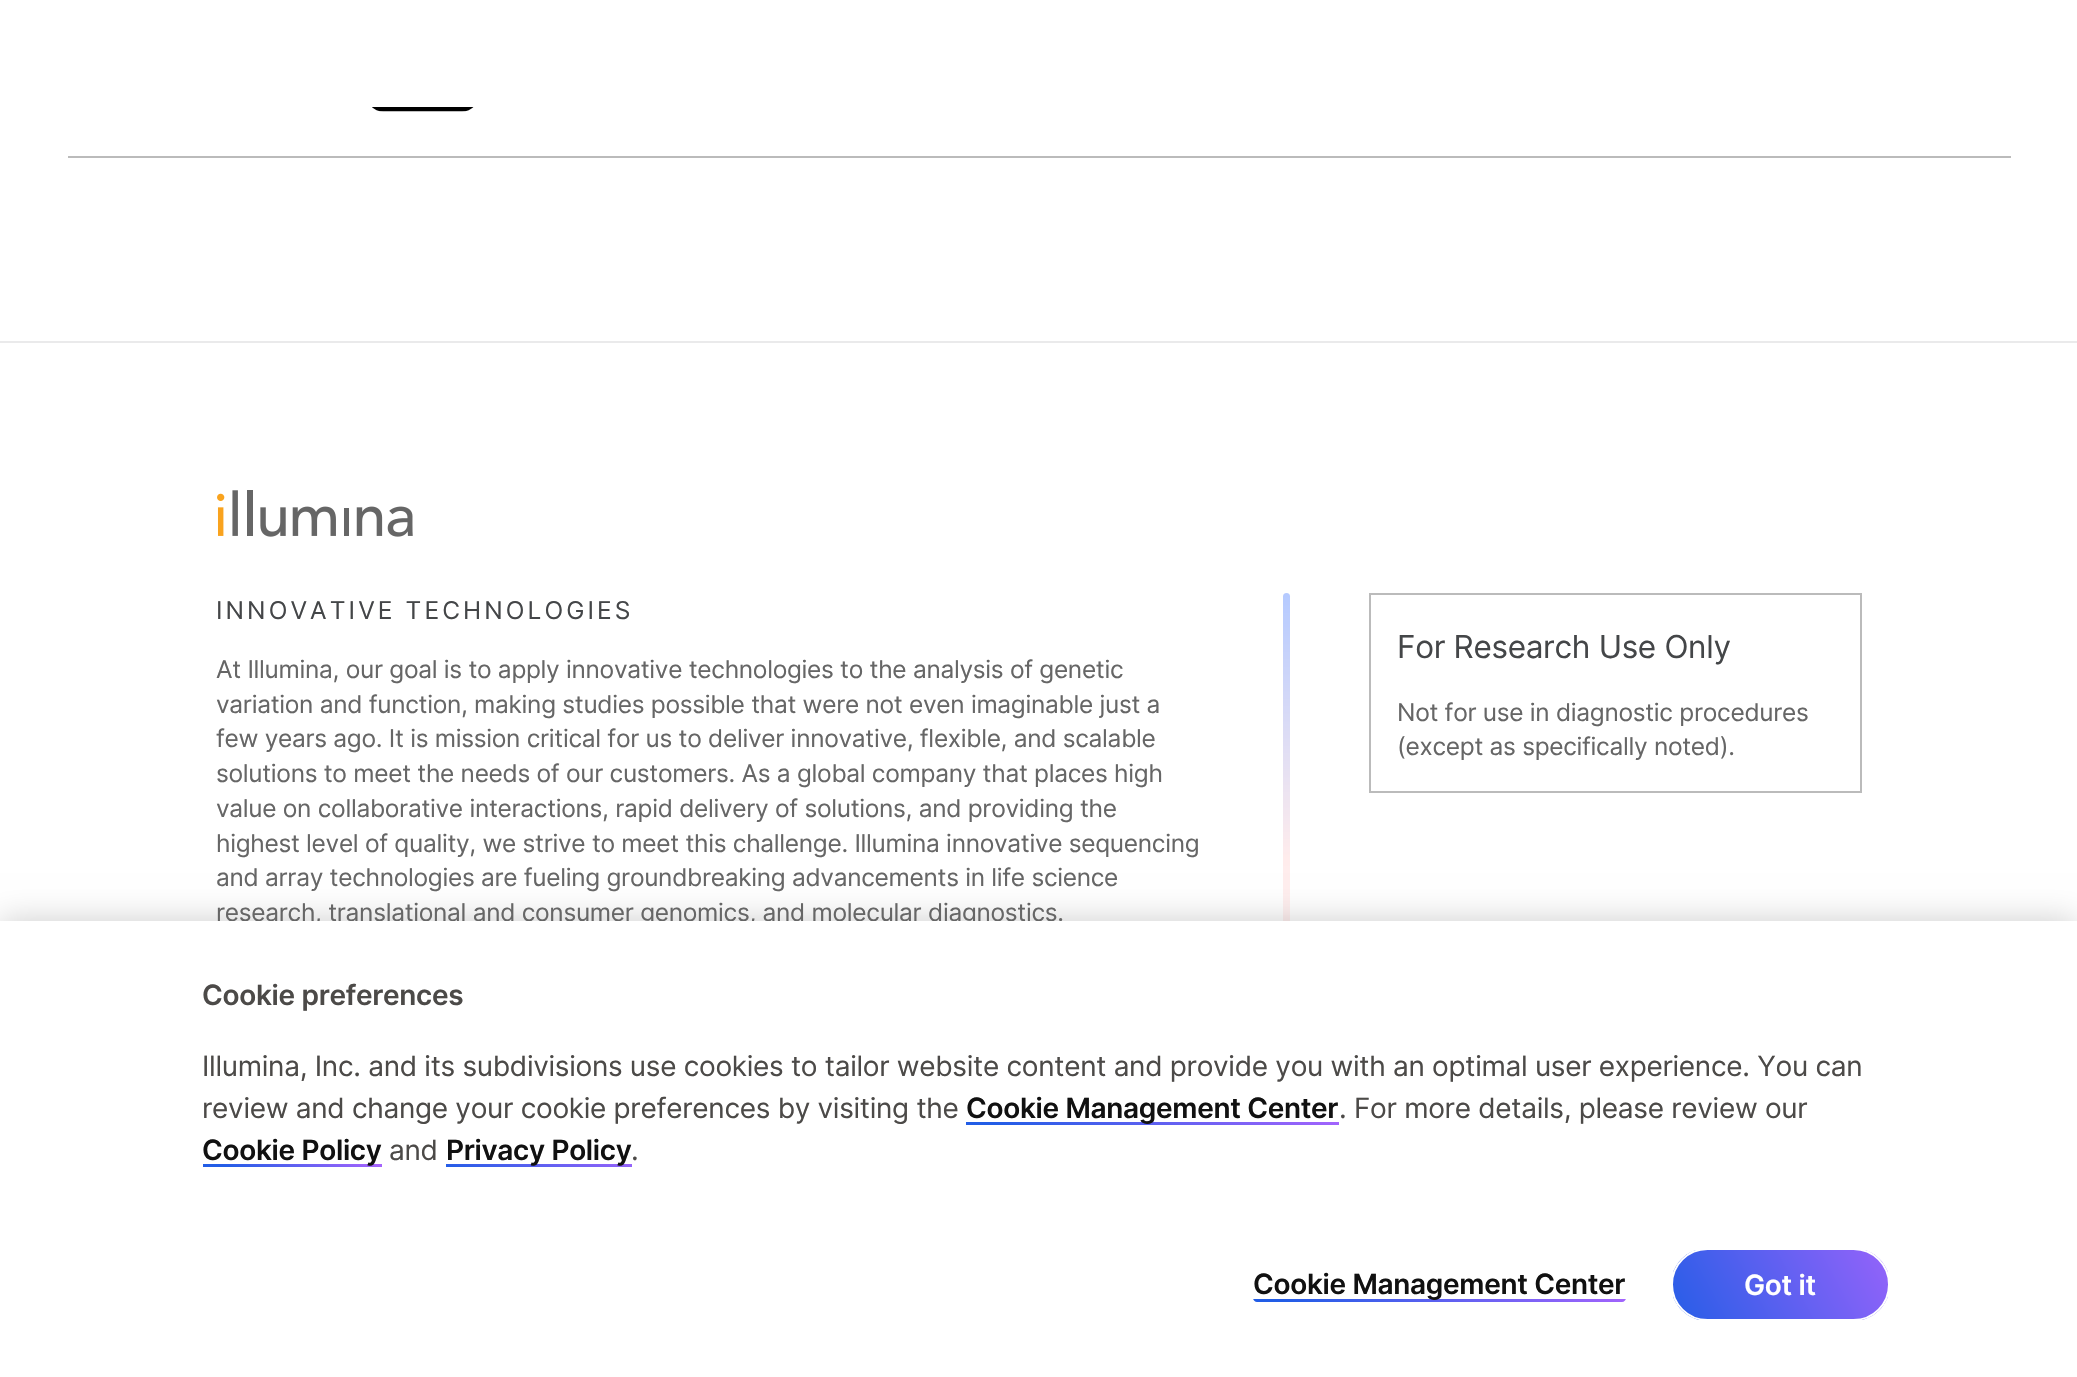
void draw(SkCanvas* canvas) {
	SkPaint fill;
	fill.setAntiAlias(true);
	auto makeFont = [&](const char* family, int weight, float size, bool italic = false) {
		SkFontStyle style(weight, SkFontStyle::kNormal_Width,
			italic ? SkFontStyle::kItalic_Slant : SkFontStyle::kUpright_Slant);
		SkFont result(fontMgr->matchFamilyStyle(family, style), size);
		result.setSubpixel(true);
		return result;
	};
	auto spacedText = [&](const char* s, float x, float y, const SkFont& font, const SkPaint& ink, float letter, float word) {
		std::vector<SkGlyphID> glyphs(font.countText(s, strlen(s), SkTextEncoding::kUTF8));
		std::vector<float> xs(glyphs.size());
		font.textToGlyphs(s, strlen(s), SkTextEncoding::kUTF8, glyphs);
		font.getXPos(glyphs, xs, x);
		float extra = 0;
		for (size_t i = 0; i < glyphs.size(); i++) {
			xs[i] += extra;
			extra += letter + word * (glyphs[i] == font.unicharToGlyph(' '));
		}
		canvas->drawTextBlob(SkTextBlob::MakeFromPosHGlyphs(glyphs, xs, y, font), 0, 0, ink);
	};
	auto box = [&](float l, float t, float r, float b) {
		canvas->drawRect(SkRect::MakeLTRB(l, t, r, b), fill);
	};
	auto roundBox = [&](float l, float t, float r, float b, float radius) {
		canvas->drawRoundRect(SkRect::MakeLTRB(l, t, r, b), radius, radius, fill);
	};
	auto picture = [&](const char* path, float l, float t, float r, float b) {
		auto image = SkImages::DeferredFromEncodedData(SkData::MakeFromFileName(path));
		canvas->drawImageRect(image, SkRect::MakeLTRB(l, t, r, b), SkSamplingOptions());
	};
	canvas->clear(0xFFFFFFFF);
	fill.setColor(0xFFBBBBBB);
	box(68, 156, 2011, 158);
	picture("image0.png", 372, 107, 474, 112);
	fill.setColor(0xFFEAEAEB);
	box(0, 341, 2077, 343);
	picture("image1.png", 217, 490, 413, 537);
	{
		const SkColor colors[] = {0xFFFFFFFF, 0xFFFFECEC, 0xFFB5CAFF};
		const float stops[] = {0, 0.5f, 1};
		const SkPoint ends[] = {{1286, 1125}, {1286, 593}};
		fill.setShader(SkGradientShader::MakeLinear(ends, colors, stops, 3, SkTileMode::kClamp));
		fill.setAlpha(255);
	}
	roundBox(1283, 593, 1290, 1125, 3.5f);
	fill.setStyle(SkPaint::kStroke_Style);
	fill.setStrokeWidth(2);
	fill.setShader(nullptr);
	fill.setColor(0xFFBBBBBB);
	canvas->drawRect(SkRect::MakeLTRB(1370, 594, 1861, 792), fill);
	fill.setStyle(SkPaint::kFill_Style);
	fill.setColor(0x33000000);
	fill.setMaskFilter(SkMaskFilter::MakeBlur(kNormal_SkBlurStyle, 16));
	canvas->drawRect(SkRect::MakeLTRB(0, 921, 2077, 1377), fill);
	fill.setMaskFilter(nullptr);
	auto font1 = makeFont("Inter", 400, 24.5f);
	fill.setColor(0xFF444648);
	spacedText("INNOVATIVE TECHNOLOGIES", 216, 619, font1, fill, 3.1f, 0);
	fill.setColor(0xFF666666);
	spacedText("At Illumina, our goal is to apply innovative technologies to the analysis of genetic", 216, 678, font1, fill, -0.31f, 0);
	spacedText("variation and function, making studies possible that were not even imaginable just a", 216, 713, font1, fill, -0.31f, 0);
	spacedText("few years ago. It is mission critical for us to deliver innovative, flexible, and scalable", 216, 747, font1, fill, -0.31f, 0);
	spacedText("solutions to meet the needs of our customers. As a global company that places high", 216, 782, font1, fill, -0.31f, 0);
	spacedText("value on collaborative interactions, rapid delivery of solutions, and providing the", 216, 817, font1, fill, -0.31f, 0);
	spacedText("highest level of quality, we strive to meet this challenge. Illumina innovative sequencing", 216, 852, font1, fill, -0.31f, 0);
	spacedText("and array technologies are fueling groundbreaking advancements in life science", 216, 886, font1, fill, -0.31f, 0);
	spacedText("research, translational and consumer genomics, and molecular diagnostics.", 216, 921, font1, fill, -0.31f, 0);
	auto font2 = makeFont("Inter", 400, 31.5f);
	fill.setColor(0xFF444648);
	spacedText("For Research Use Only", 1397, 658, font2, fill, -0.31f, 0);
	fill.setColor(0xFF666666);
	spacedText("Not for use in diagnostic procedures", 1397, 721, font1, fill, -0.31f, 0);
	spacedText("(except as specifically noted).", 1397, 755, font1, fill, -0.31f, 0);
	fill.setColor(0xFFFFFFFF);
	box(0, 921, 2077, 1377);
	auto font3 = makeFont("Inter", 600, 28);
	fill.setColor(0xFF4C4A48);
	spacedText("Cookie preferences", 202, 1005, font3, fill, -0.31f, 0);
	auto font4 = makeFont("Inter", 400, 28);
	spacedText("Illumina, Inc. and its subdivisions use cookies to tailor website content and provide you with an optimal user experience. You can", 202, 1076, font4, fill, -0.31f, 0);
	spacedText("review and change your cookie preferences by visiting the", 202, 1118, font4, fill, -0.31f, 0);
	{
		const SkColor colors[] = {0xFF225DE6, 0xFFA664FD};
		const float stops[] = {0.1f, 1};
		const SkPoint ends[] = {{1148, 1153}, {1157, 1094}};
		fill.setShader(SkGradientShader::MakeLinear(ends, colors, stops, 2, SkTileMode::kClamp));
		fill.setAlpha(255);
	}
	box(966, 1122, 1339, 1125);
	fill.setShader(nullptr);
	fill.setColor(0xFF111111);
	spacedText("Cookie Management Center", 966, 1118, font3, fill, -0.31f, 0);
	fill.setColor(0xFF4C4A48);
	spacedText(". For more details, please review our", 1339, 1118, font4, fill, -0.31f, 0);
	{
		const SkColor colors[] = {0xFF225DE6, 0xFFA664FD};
		const float stops[] = {0.1f, 1};
		const SkPoint ends[] = {{290, 1180}, {295, 1151}};
		fill.setShader(SkGradientShader::MakeLinear(ends, colors, stops, 2, SkTileMode::kClamp));
		fill.setAlpha(255);
	}
	box(203, 1164, 382, 1167);
	fill.setShader(nullptr);
	fill.setColor(0xFF111111);
	spacedText("Cookie Policy", 202, 1160, font3, fill, -0.31f, 0);
	fill.setColor(0xFF4C4A48);
	spacedText("and", 389, 1160, font4, fill, -0.31f, 0);
	{
		const SkColor colors[] = {0xFF225DE6, 0xFFA664FD};
		const float stops[] = {0.1f, 1};
		const SkPoint ends[] = {{537, 1181}, {541, 1150}};
		fill.setShader(SkGradientShader::MakeLinear(ends, colors, stops, 2, SkTileMode::kClamp));
		fill.setAlpha(255);
	}
	box(446, 1164, 632, 1167);
	fill.setShader(nullptr);
	fill.setColor(0xFF111111);
	spacedText("Privacy Policy", 446, 1160, font3, fill, -0.31f, 0);
	fill.setColor(0xFF4C4A48);
	spacedText(".", 631, 1160, font4, fill, -0.31f, 0);
	canvas->save();
	canvas->clipPath(SkPathBuilder().moveTo(1257, 1267).lineTo(1622, 1267).cubicTo(1624, 1267, 1626, 1269, 1626, 1271).lineTo(1626, 1298).cubicTo(1626, 1300, 1624, 1302, 1622, 1302).lineTo(1257, 1302).cubicTo(1255, 1302, 1253, 1300, 1253, 1298).lineTo(1253, 1271).cubicTo(1253, 1269, 1255, 1267, 1257, 1267).close().detach(), true);
	{
		const SkColor colors[] = {0xFF225DE6, 0xFFA664FD};
		const float stops[] = {0.1f, 1};
		const SkPoint ends[] = {{1435, 1330}, {1444, 1271}};
		fill.setShader(SkGradientShader::MakeLinear(ends, colors, stops, 2, SkTileMode::kClamp));
		fill.setAlpha(255);
	}
	box(1253, 1299, 1626, 1302);
	canvas->restore();
	fill.setShader(nullptr);
	fill.setColor(0xFF111111);
	spacedText("Cookie Management Center", 1253, 1294, font3, fill, -0.31f, 0);
	canvas->save();
	canvas->clipPath(SkPathBuilder().moveTo(1707.5f, 1248).lineTo(1853.5f, 1248).cubicTo(1873.5f, 1248, 1890, 1264.5f, 1890, 1284.5f).cubicTo(1890, 1304.5f, 1873.5f, 1321, 1853.5f, 1321).lineTo(1707.5f, 1321).cubicTo(1687.5f, 1321, 1671, 1304.5f, 1671, 1284.5f).cubicTo(1671, 1264.5f, 1687.5f, 1248, 1707.5f, 1248).close().detach(), true);
	{
		const SkColor colors[] = {0xFF225DE6, 0xFFA664FD};
		const float stops[] = {0, 1};
		const SkPoint ends[] = {{1674, 1342}, {1910, 1215}};
		fill.setShader(SkGradientShader::MakeLinear(ends, colors, stops, 2, SkTileMode::kClamp));
		fill.setAlpha(255);
	}
	box(1673, 1250, 1888, 1320);
	canvas->restore();
	fill.setStyle(SkPaint::kStroke_Style);
	fill.setShader(nullptr);
	fill.setColor(0xFFFFFFFF);
	canvas->drawRoundRect(SkRect::MakeLTRB(1672, 1249, 1889, 1320), 35.5f, 35.5f, fill);
	fill.setStyle(SkPaint::kFill_Style);
	spacedText("Got it", 1744, 1295, font3, fill, -0.31f, 0);
}
